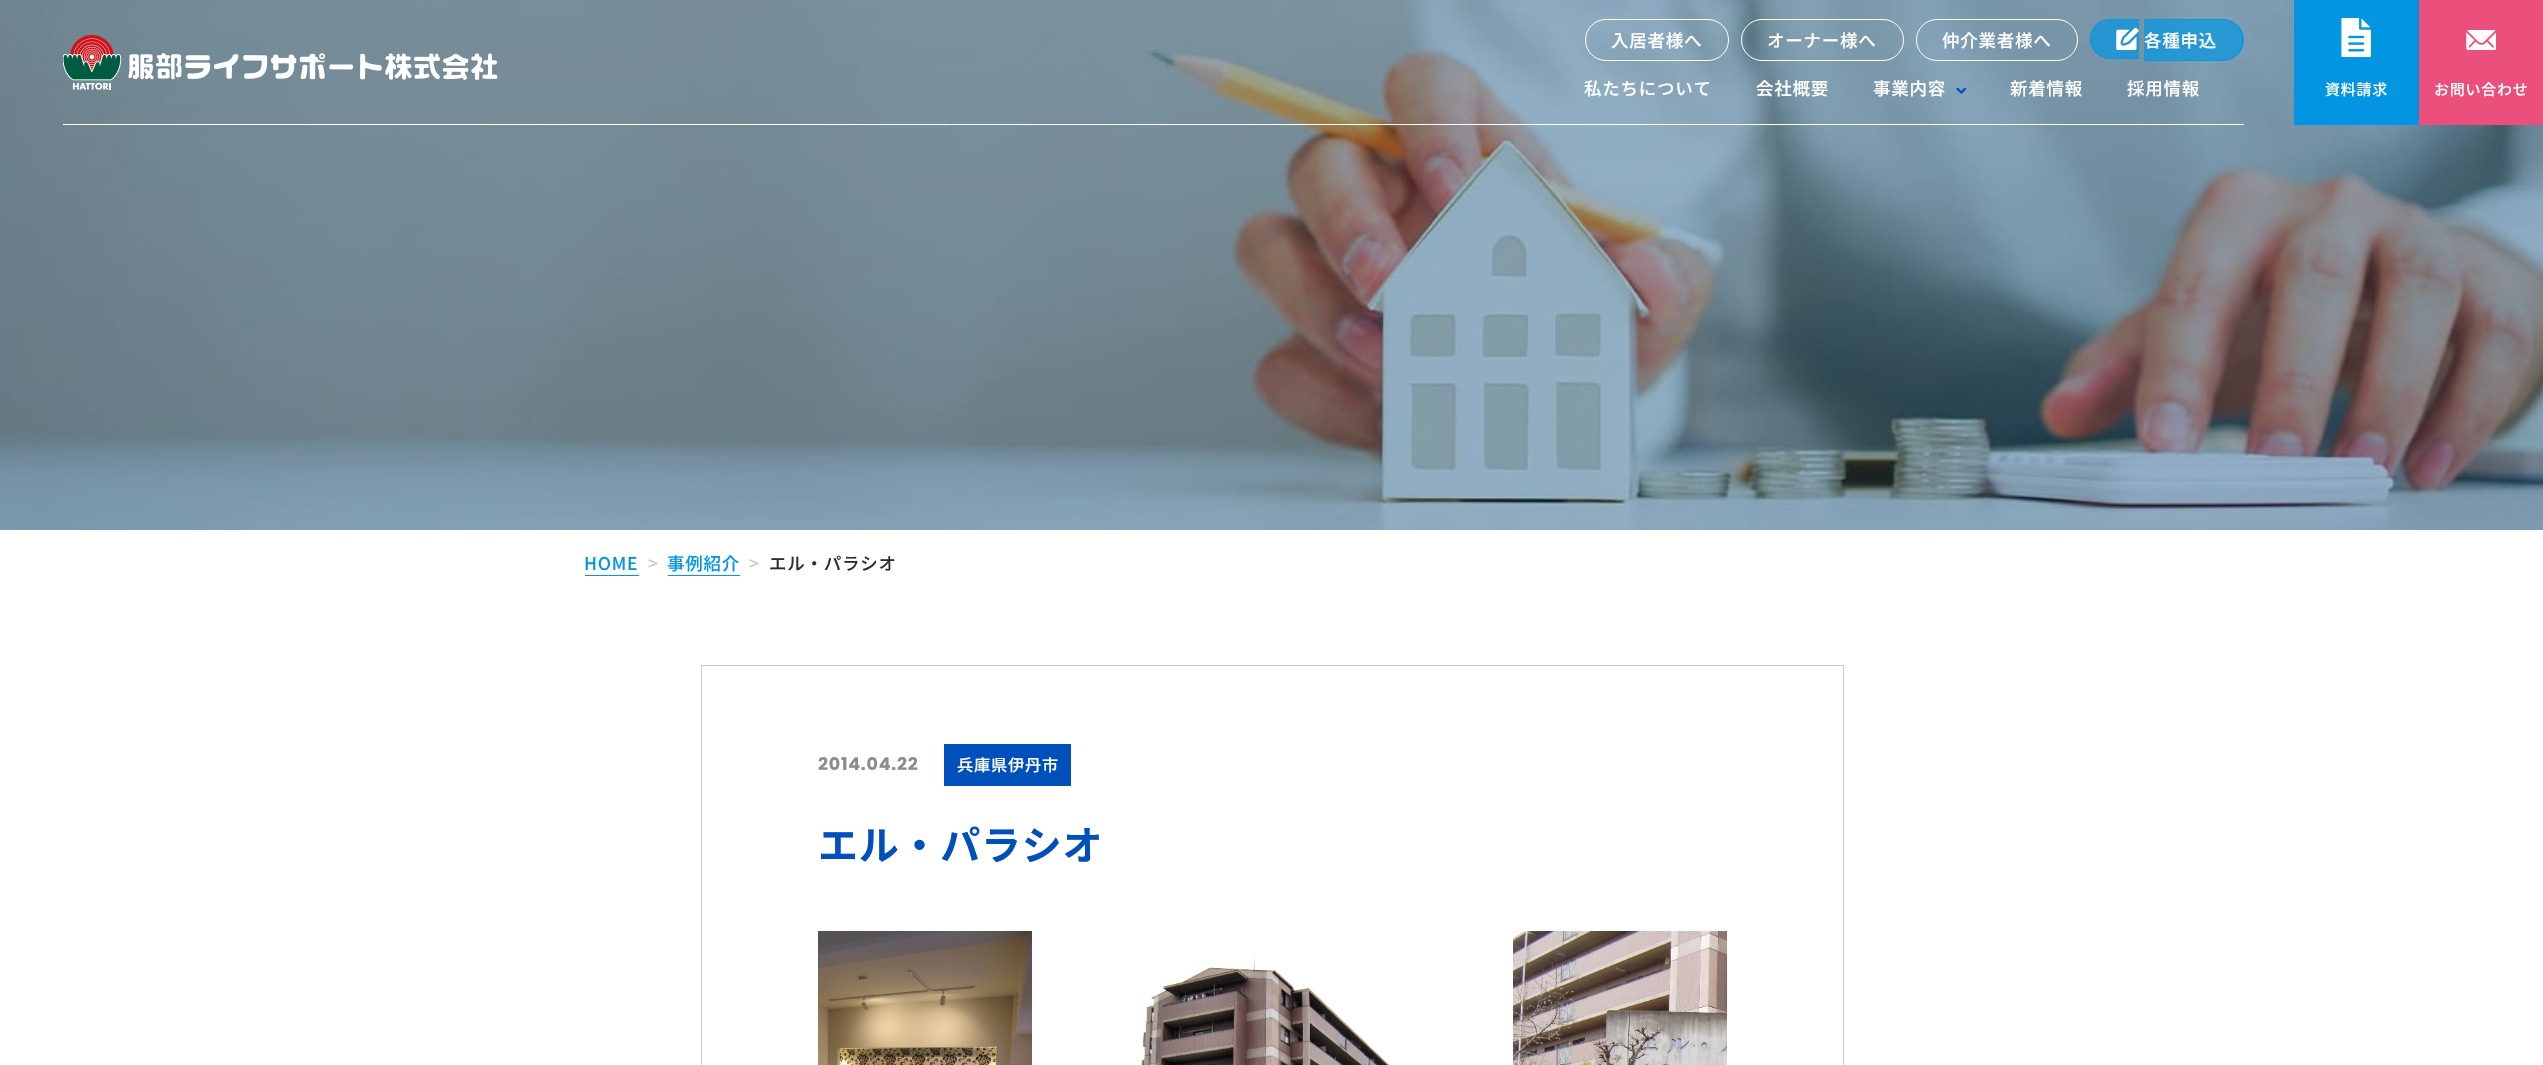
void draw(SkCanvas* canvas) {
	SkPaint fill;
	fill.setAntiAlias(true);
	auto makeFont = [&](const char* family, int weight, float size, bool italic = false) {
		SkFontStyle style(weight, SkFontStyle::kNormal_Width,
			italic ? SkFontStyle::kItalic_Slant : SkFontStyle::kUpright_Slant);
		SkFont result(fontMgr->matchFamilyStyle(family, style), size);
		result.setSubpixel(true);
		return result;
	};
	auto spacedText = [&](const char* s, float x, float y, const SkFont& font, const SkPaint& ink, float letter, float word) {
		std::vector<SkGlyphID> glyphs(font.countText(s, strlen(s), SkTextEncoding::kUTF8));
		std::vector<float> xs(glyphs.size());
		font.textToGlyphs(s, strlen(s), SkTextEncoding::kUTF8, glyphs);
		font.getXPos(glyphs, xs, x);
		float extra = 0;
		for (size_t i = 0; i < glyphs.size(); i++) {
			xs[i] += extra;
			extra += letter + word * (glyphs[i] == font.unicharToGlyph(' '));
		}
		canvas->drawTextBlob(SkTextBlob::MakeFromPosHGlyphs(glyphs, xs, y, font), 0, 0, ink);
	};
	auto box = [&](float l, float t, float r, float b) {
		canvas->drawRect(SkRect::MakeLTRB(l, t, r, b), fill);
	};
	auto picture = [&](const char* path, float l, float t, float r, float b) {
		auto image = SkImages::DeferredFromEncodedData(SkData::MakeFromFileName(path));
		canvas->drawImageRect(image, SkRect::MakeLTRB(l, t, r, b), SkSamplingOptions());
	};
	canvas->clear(0xFFFFFFFF);
	picture("image0.png", 0, 0, 2543, 530);
	picture("image1.png", 63, 35, 498, 90);
	fill.setStyle(SkPaint::kStroke_Style);
	fill.setStrokeWidth(1);
	fill.setColor(0xFFFFFFFF);
	canvas->drawRoundRect(SkRect::MakeLTRB(1585.5f, 19.5f, 1728.5f, 60.5f), 20.5f, 20.5f, fill);
	canvas->drawRoundRect(SkRect::MakeLTRB(1741.5f, 19.5f, 1903.5f, 60.5f), 20.5f, 20.5f, fill);
	canvas->drawRoundRect(SkRect::MakeLTRB(1916.5f, 19.5f, 2077.5f, 60.5f), 20.5f, 20.5f, fill);
	fill.setStyle(SkPaint::kFill_Style);
	fill.setColor(0xB30195E2);
	canvas->drawPath(SkPathBuilder().moveTo(2110, 19).lineTo(2139, 19).lineTo(2139, 59).lineTo(2110, 59).cubicTo(2099, 59, 2090, 50, 2090, 39).cubicTo(2090, 28, 2099, 19, 2110, 19).close().detach(), fill);
	canvas->drawPath(SkPathBuilder(SkPathFillType::kEvenOdd).moveTo(2110, 19).lineTo(2139, 19).lineTo(2139, 59).lineTo(2110, 59).cubicTo(2099, 59, 2090, 50, 2090, 39).cubicTo(2090, 28, 2099, 19, 2110, 19).close().moveTo(2110, 20).lineTo(2139, 20).lineTo(2139, 58).lineTo(2110, 58).cubicTo(2100, 58, 2091, 49, 2091, 39).cubicTo(2091, 28, 2100, 20, 2110, 20).close().detach(), fill);
	canvas->drawPath(SkPathBuilder().moveTo(2144, 19).lineTo(2223, 19).cubicTo(2234.5f, 19, 2244, 28.5f, 2244, 40).cubicTo(2244, 51.5f, 2234.5f, 61, 2223, 61).lineTo(2144, 61).close().detach(), fill);
	canvas->drawPath(SkPathBuilder(SkPathFillType::kEvenOdd).moveTo(2144, 19).lineTo(2222, 19).cubicTo(2234, 19, 2244, 28, 2244, 40).cubicTo(2244, 52, 2234, 61, 2222, 61).lineTo(2144, 61).close().moveTo(2144, 20).lineTo(2222, 20).cubicTo(2234, 20, 2242, 29, 2242, 40).cubicTo(2242, 51, 2234, 60, 2222, 60).lineTo(2144, 60).close().detach(), fill);
	picture("image2.png", 2116, 28, 2139, 50);
	picture("image3.png", 1956, 88, 1966, 94);
	fill.setColor(0xFF0195E2);
	box(2294, 0, 2419, 125);
	picture("image4.png", 2341, 18, 2371, 57);
	fill.setColor(0xFFEB4F7B);
	box(2419, 0, 2543, 125);
	picture("image5.png", 2466, 30, 2496, 50);
	fill.setColor(0xFFFFFFFF);
	box(63, 124, 2244, 125);
	fill.setColor(0xFF0195E2);
	box(585, 575, 639, 576);
	box(668, 575, 740, 576);
	fill.setStyle(SkPaint::kStroke_Style);
	fill.setColor(0xFFCCCCCC);
	canvas->drawRect(SkRect::MakeLTRB(701.5f, 665.5f, 1843.5f, 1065.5f), fill);
	fill.setStyle(SkPaint::kFill_Style);
	fill.setColor(0xFF0050BC);
	box(944, 744, 1071, 786);
	picture("image6.png", 818, 931, 1032, 1065);
	picture("image7.png", 1141, 956, 1390, 1065);
	picture("image8.png", 1513, 931, 1727, 1065);
	auto font1 = makeFont("Noto Sans JP", 500, 17.5f);
	fill.setColor(0xFFFFFFFF);
	spacedText("入居者様へ", 1611, 47, font1, fill, 0.75f, 0);
	spacedText("オーナー様へ", 1767, 47, font1, fill, 0.75f, 0);
	spacedText("仲介業者様へ", 1942, 47, font1, fill, 0.75f, 0);
	spacedText("各種申込", 2144, 47, font1, fill, 0.75f, 0);
	spacedText("私たちについて", 1584, 95, font1, fill, 0.75f, 0);
	spacedText("会社概要", 1756, 95, font1, fill, 0.75f, 0);
	spacedText("事業内容", 1873, 95, font1, fill, 0.75f, 0);
	spacedText("新着情報", 2010, 95, font1, fill, 0.75f, 0);
	spacedText("採用情報", 2127, 95, font1, fill, 0.75f, 0);
	auto font2 = makeFont("Noto Sans JP", 500, 15);
	spacedText("資料請求", 2325, 95, font2, fill, 0.75f, 0);
	spacedText("お問い合わせ", 2434, 95, font2, fill, 0.75f, 0);
	fill.setColor(0xFF0195E2);
	spacedText("HOME", 584, 570, font1, fill, 0.75f, 0);
	fill.setColor(0xFFCCCCCC);
	spacedText(">", 648, 570, font1, fill, 0.75f, 0);
	fill.setColor(0xFF0195E2);
	spacedText("事例紹介", 667, 570, font1, fill, 0.75f, 0);
	fill.setColor(0xFFCCCCCC);
	spacedText(">", 749, 570, font1, fill, 0.75f, 0);
	fill.setColor(0xFF2D2D2D);
	spacedText("エル・パラシオ", 769, 570, font1, fill, 0.75f, 0);
	auto font3 = makeFont("Poppins", 700, 17.5f);
	fill.setColor(0xFF8C8C8C);
	spacedText("2014.04.22", 818, 770, font3, fill, 0.75f, 0);
	auto font4 = makeFont("Noto Sans JP", 500, 16.25f);
	fill.setColor(0xFFFFFFFF);
	spacedText("兵庫県伊丹市", 957, 771, font4, fill, 0.75f, 0);
	auto font5 = makeFont("Noto Sans JP", 700, 40);
	fill.setColor(0xFF0050BC);
	spacedText("エル・パラシオ", 818, 860, font5, fill, 0.75f, 0);
}
